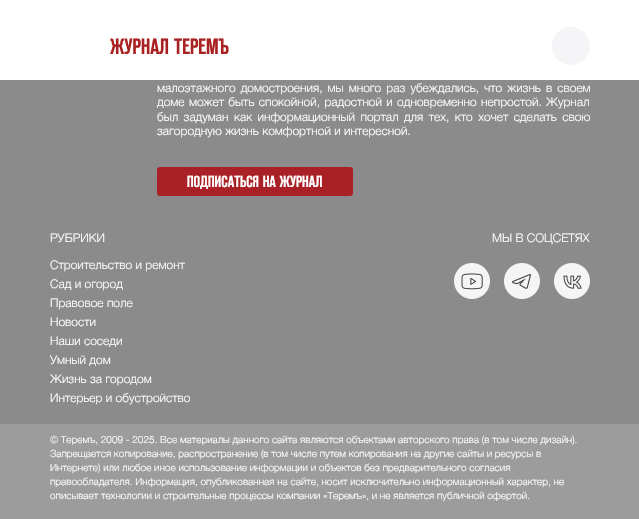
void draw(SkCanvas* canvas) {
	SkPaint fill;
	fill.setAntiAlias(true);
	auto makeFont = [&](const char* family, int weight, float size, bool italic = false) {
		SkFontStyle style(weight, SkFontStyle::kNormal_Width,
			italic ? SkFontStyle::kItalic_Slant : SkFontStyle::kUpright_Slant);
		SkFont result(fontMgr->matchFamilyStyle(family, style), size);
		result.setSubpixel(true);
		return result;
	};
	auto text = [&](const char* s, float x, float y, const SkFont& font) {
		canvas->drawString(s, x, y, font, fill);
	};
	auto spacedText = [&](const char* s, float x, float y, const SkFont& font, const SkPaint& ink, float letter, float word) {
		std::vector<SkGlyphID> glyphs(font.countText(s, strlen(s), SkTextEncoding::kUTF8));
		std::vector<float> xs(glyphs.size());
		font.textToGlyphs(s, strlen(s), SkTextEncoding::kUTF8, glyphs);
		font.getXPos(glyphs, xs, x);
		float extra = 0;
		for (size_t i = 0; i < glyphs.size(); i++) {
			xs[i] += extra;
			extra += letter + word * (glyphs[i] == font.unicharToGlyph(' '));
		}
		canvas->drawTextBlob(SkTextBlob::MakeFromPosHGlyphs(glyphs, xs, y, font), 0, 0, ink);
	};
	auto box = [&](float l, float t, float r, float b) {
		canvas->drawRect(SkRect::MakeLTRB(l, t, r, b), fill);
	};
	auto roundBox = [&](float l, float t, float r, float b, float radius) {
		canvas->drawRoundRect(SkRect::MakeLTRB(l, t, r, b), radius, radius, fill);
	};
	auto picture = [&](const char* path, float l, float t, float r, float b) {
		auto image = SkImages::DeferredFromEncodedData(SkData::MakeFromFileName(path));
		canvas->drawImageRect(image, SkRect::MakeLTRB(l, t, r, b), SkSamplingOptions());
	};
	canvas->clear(0xFF8B8B8B);
	fill.setColor(0xFFFFFFFF);
	box(0, 0, 639, 80);
	fill.setColor(0xFFF5F5F7);
	canvas->drawCircle(571, 46, 19, fill);
	fill.setColor(0xFFA92127);
	roundBox(157, 167, 353, 196, 3);
	picture("image0.png", 454, 263, 490, 299);
	picture("image1.png", 504, 263, 540, 299);
	picture("image2.png", 554, 263, 590, 299);
	fill.setColor(0xFF9C9C9C);
	box(0, 424, 639, 519);
	auto font1 = makeFont("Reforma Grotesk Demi", 400, 22);
	fill.setColor(0xFFAA2121);
	text("ЖУРНАЛ ТЕРЕМЪ", 110, 54, font1);
	auto font2 = makeFont("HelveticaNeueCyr", 300, 12);
	fill.setColor(0xFFFFFFFF);
	spacedText("малоэтажного домостроения, мы много раз убеждались, что жизнь в своем", 157, 92, font2, fill, 0, 1.75f);
	spacedText("доме может быть спокойной, радостной и одновременно непростой. Журнал", 157, 106, font2, fill, 0, 1);
	spacedText("был задуман как информационный портал для тех, кто хочет сделать свою", 157, 121, font2, fill, 0, 2.1f);
	text("загородную жизнь комфортной и интересной.", 157, 135, font2);
	auto font3 = makeFont("Reforma Grotesk Demi", 400, 16);
	text("ПОДПИСАТЬСЯ НА ЖУРНАЛ", 187, 187, font3);
	text("РУБРИКИ", 50, 242, font2);
	text("Строительство и ремонт", 50, 269, font2);
	text("Сад и огород", 50, 288, font2);
	text("Правовое поле", 50, 307, font2);
	text("Новости", 50, 326, font2);
	text("Наши соседи", 50, 345, font2);
	text("Умный дом", 50, 364, font2);
	text("Жизнь за городом", 50, 383, font2);
	text("Интерьер и обустройство", 50, 402, font2);
	text("МЫ В СОЦСЕТЯХ", 492, 242, font2);
	auto font4 = makeFont("HelveticaNeueCyr", 300, 10);
	text("© Теремъ, 2009 - 2025. Все материалы данного сайта являются объектами авторского права (в том числе дизайн).", 50, 443, font4);
	text("Запрещается копирование, распространение (в том числе путем копирования на другие сайты и ресурсы в", 50, 457, font4);
	text("Интернете) или любое иное использование информации и объектов без предварительного согласия", 50, 471, font4);
	text("правообладателя. Информация, опубликованная на сайте, носит исключительно информационный характер, не", 50, 485, font4);
	text("описывает технологии и строительные процессы компании «Теремъ», и не является публичной офертой.", 50, 499, font4);
}
